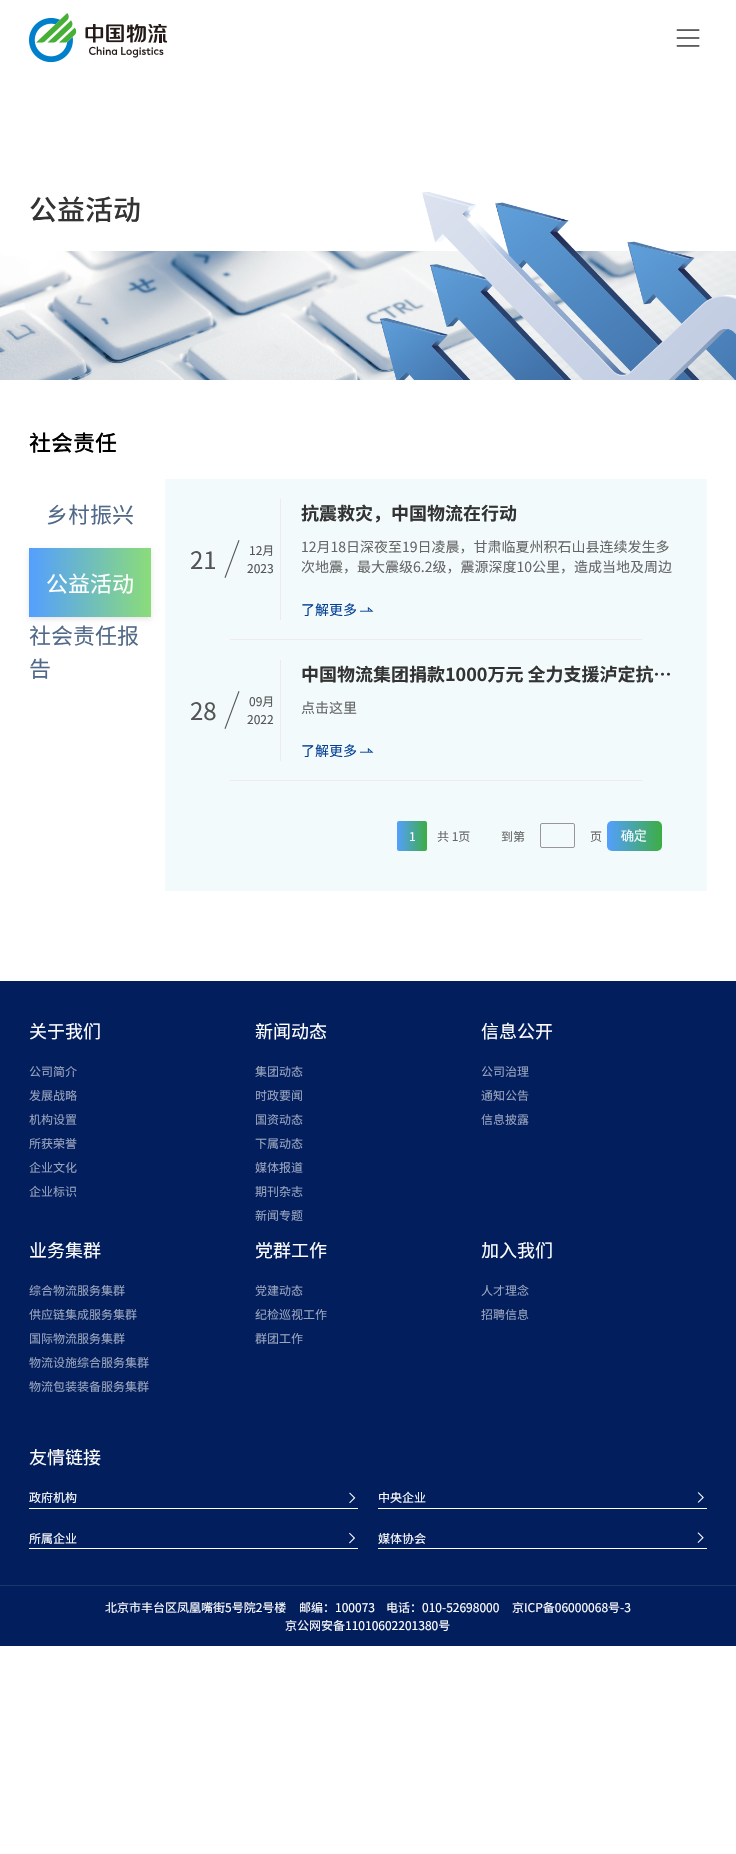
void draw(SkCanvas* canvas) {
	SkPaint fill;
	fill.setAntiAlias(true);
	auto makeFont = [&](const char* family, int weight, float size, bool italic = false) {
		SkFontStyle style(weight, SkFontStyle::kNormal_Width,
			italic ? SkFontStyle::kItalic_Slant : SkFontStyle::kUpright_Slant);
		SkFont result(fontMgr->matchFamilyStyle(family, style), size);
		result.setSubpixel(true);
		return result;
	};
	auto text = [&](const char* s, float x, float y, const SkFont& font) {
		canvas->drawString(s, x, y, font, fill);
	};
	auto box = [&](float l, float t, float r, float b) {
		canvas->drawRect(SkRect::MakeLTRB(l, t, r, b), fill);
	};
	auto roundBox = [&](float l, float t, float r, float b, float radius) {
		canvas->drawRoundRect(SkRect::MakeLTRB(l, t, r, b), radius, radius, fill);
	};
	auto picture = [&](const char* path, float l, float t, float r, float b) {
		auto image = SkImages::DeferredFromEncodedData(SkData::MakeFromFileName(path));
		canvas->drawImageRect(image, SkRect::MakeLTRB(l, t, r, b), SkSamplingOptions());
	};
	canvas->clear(0xFFFFFFFF);
	picture("image0.png", 29, 13, 168, 63);
	picture("image1.png", 676, 29, 700, 47);
	picture("image2.png", 0, 192, 736, 380);
	fill.setColor(0x1A000000);
	fill.setMaskFilter(SkMaskFilter::MakeBlur(kNormal_SkBlurStyle, 2.5f));
	canvas->drawRect(SkRect::MakeLTRB(29, 550, 151, 619), fill);
	fill.setMaskFilter(nullptr);
	{
		const SkColor colors[] = {0xFF549FFF, 0xFF8BDC7A};
		const float stops[] = {0, 1};
		const SkPoint ends[] = {{29, 583}, {151, 583}};
		fill.setShader(SkGradientShader::MakeLinear(ends, colors, stops, 2, SkTileMode::kClamp));
		fill.setAlpha(255);
	}
	box(29, 548, 151, 617);
	fill.setShader(nullptr);
	fill.setColor(0xFFF2FAFC);
	box(165, 479, 707, 891);
	fill.setColor(0xFF555555);
	canvas->drawPath(SkPathBuilder().moveTo(238.5f, 540).lineTo(239.5f, 540.5f).lineTo(225.5f, 578).lineTo(224.5f, 577.5f).close().detach(), fill);
	fill.setColor(0xFFEFEBEC);
	box(280, 499, 281, 620);
	picture("image3.png", 360, 607, 374, 612);
	box(230, 639, 642, 640);
	fill.setColor(0xFF555555);
	canvas->drawPath(SkPathBuilder().moveTo(238.5f, 691).lineTo(239.5f, 691.5f).lineTo(225.5f, 729).lineTo(224.5f, 728.5f).close().detach(), fill);
	fill.setColor(0xFFEFEBEC);
	box(280, 660, 281, 761);
	picture("image3.png", 360, 748, 374, 753);
	box(230, 780, 642, 781);
	{
		const SkColor colors[] = {0xFF3CAD43, 0xFF549FFF};
		const float stops[] = {0, 1};
		const SkPoint ends[] = {{427, 836}, {397, 836}};
		fill.setShader(SkGradientShader::MakeLinear(ends, colors, stops, 2, SkTileMode::kClamp));
		fill.setAlpha(255);
	}
	roundBox(397, 821, 427, 851, 2);
	fill.setStyle(SkPaint::kStroke_Style);
	fill.setStrokeWidth(1);
	fill.setShader(nullptr);
	fill.setColor(0xFF979797);
	canvas->drawRoundRect(SkRect::MakeLTRB(540.5f, 823.5f, 574.5f, 847.5f), 1.5f, 1.5f, fill);
	fill.setStyle(SkPaint::kFill_Style);
	{
		const SkColor colors[] = {0xFF3CAD43, 0xFF549FFF};
		const float stops[] = {0, 1};
		const SkPoint ends[] = {{662, 836}, {607, 836}};
		fill.setShader(SkGradientShader::MakeLinear(ends, colors, stops, 2, SkTileMode::kClamp));
		fill.setAlpha(255);
	}
	roundBox(607, 821, 662, 851, 5);
	fill.setShader(nullptr);
	fill.setColor(0xFF021E5D);
	box(0, 981, 736, 1646);
	fill.setColor(0xFFFFFFFF);
	box(29, 1508, 358, 1509);
	picture("image4.png", 349, 1492, 356, 1504);
	box(378, 1508, 707, 1509);
	picture("image5.png", 697, 1492, 704, 1503);
	box(29, 1548, 358, 1549);
	picture("image6.png", 349, 1532, 355, 1544);
	box(378, 1548, 707, 1549);
	picture("image7.png", 697, 1532, 704, 1543);
	fill.setColor(0xFF1B356D);
	box(0, 1585, 736, 1586);
	auto font1 = makeFont("Noto Sans SC", 500, 28);
	fill.setColor(0xFF333333);
	text("公益活动", 29, 220, font1);
	auto font2 = makeFont("Noto Sans SC", 500, 22);
	fill.setColor(0xFF000000);
	text("社会责任", 29, 451, font2);
	auto font3 = makeFont("Noto Sans SC", 400, 22);
	fill.setColor(0xFF516989);
	text("乡村振兴", 46, 523, font3);
	fill.setColor(0xFFFFFFFF);
	text("公益活动", 46, 592, font3);
	fill.setColor(0xFF516989);
	text("社会责任报", 29, 644, font3);
	text("告", 29, 677, font3);
	auto font4 = makeFont("Noto Sans SC", 400, 24);
	fill.setColor(0xFF555555);
	text("21", 190, 569, font4);
	auto font5 = makeFont("Noto Sans SC", 400, 12);
	text("12月", 249, 555, font5);
	text("2023", 247, 573, font5);
	auto font6 = makeFont("Noto Sans SC", 700, 18);
	fill.setColor(0xFF333333);
	text("抗震救灾，中国物流在行动", 301, 520, font6);
	auto font7 = makeFont("Noto Sans SC", 400, 14);
	fill.setColor(0xFF666666);
	text("12月18日深夜至19日凌晨，甘肃临夏州积石山县连续发生多", 301, 552, font7);
	text("次地震，最大震级6.2级，震源深度10公里，造成当地及周边", 301, 572, font7);
	fill.setColor(0xFF044094);
	text("了解更多", 301, 615, font7);
	fill.setColor(0xFF555555);
	text("28", 190, 720, font4);
	text("09月", 249, 706, font5);
	text("2022", 247, 724, font5);
	fill.setColor(0xFF333333);
	text("中国物流集团捐款1000万元 全力支援泸定抗…", 301, 681, font6);
	fill.setColor(0xFF666666);
	text("点击这里", 301, 713, font7);
	fill.setColor(0xFF044094);
	text("了解更多", 301, 756, font7);
	fill.setColor(0xFFFFFFFF);
	text("1", 409, 841, font5);
	fill.setColor(0xFF666666);
	text("共 1页", 437, 841, font5);
	text("到第", 501, 841, font5);
	text("页", 590, 841, font5);
	auto font8 = makeFont("WenQuanYi Zen Hei", 500, 13);
	fill.setColor(0xFFFFFFFF);
	text("确定", 621, 840, font8);
	auto font9 = makeFont("Noto Sans SC", 400, 18);
	text("关于我们", 29, 1038, font9);
	fill.setColor(0xFF9AA5BE);
	text("公司简介", 29, 1076, font5);
	text("发展战略", 29, 1100, font5);
	text("机构设置", 29, 1124, font5);
	text("所获荣誉", 29, 1148, font5);
	text("企业文化", 29, 1172, font5);
	text("企业标识", 29, 1196, font5);
	fill.setColor(0xFFFFFFFF);
	text("新闻动态", 255, 1038, font9);
	fill.setColor(0xFF9AA5BE);
	text("集团动态", 255, 1076, font5);
	text("时政要闻", 255, 1100, font5);
	text("国资动态", 255, 1124, font5);
	text("下属动态", 255, 1148, font5);
	text("媒体报道", 255, 1172, font5);
	text("期刊杂志", 255, 1196, font5);
	text("新闻专题", 255, 1220, font5);
	fill.setColor(0xFFFFFFFF);
	text("信息公开", 481, 1038, font9);
	fill.setColor(0xFF9AA5BE);
	text("公司治理", 481, 1076, font5);
	text("通知公告", 481, 1100, font5);
	text("信息披露", 481, 1124, font5);
	fill.setColor(0xFFFFFFFF);
	text("业务集群", 29, 1257, font9);
	fill.setColor(0xFF9AA5BE);
	text("综合物流服务集群", 29, 1295, font5);
	text("供应链集成服务集群", 29, 1319, font5);
	text("国际物流服务集群", 29, 1343, font5);
	text("物流设施综合服务集群", 29, 1367, font5);
	text("物流包装装备服务集群", 29, 1391, font5);
	fill.setColor(0xFFFFFFFF);
	text("党群工作", 255, 1257, font9);
	fill.setColor(0xFF9AA5BE);
	text("党建动态", 255, 1295, font5);
	text("纪检巡视工作", 255, 1319, font5);
	text("群团工作", 255, 1343, font5);
	fill.setColor(0xFFFFFFFF);
	text("加入我们", 481, 1257, font9);
	fill.setColor(0xFF9AA5BE);
	text("人才理念", 481, 1295, font5);
	text("招聘信息", 481, 1319, font5);
	fill.setColor(0xFFFFFFFF);
	text("友情链接", 29, 1464, font9);
	text("政府机构", 29, 1502, font5);
	text("中央企业", 378, 1502, font5);
	text("所属企业", 29, 1543, font5);
	text("媒体协会", 378, 1543, font5);
	text("北京市丰台区凤凰嘴街5号院2号楼", 105, 1612, font5);
	text("邮编：100073", 299, 1612, font5);
	text("电话：010-52698000", 386, 1612, font5);
	text("京ICP备06000068号-3", 512, 1612, font5);
	text("京公网安备11010602201380号", 285, 1630, font5);
}
